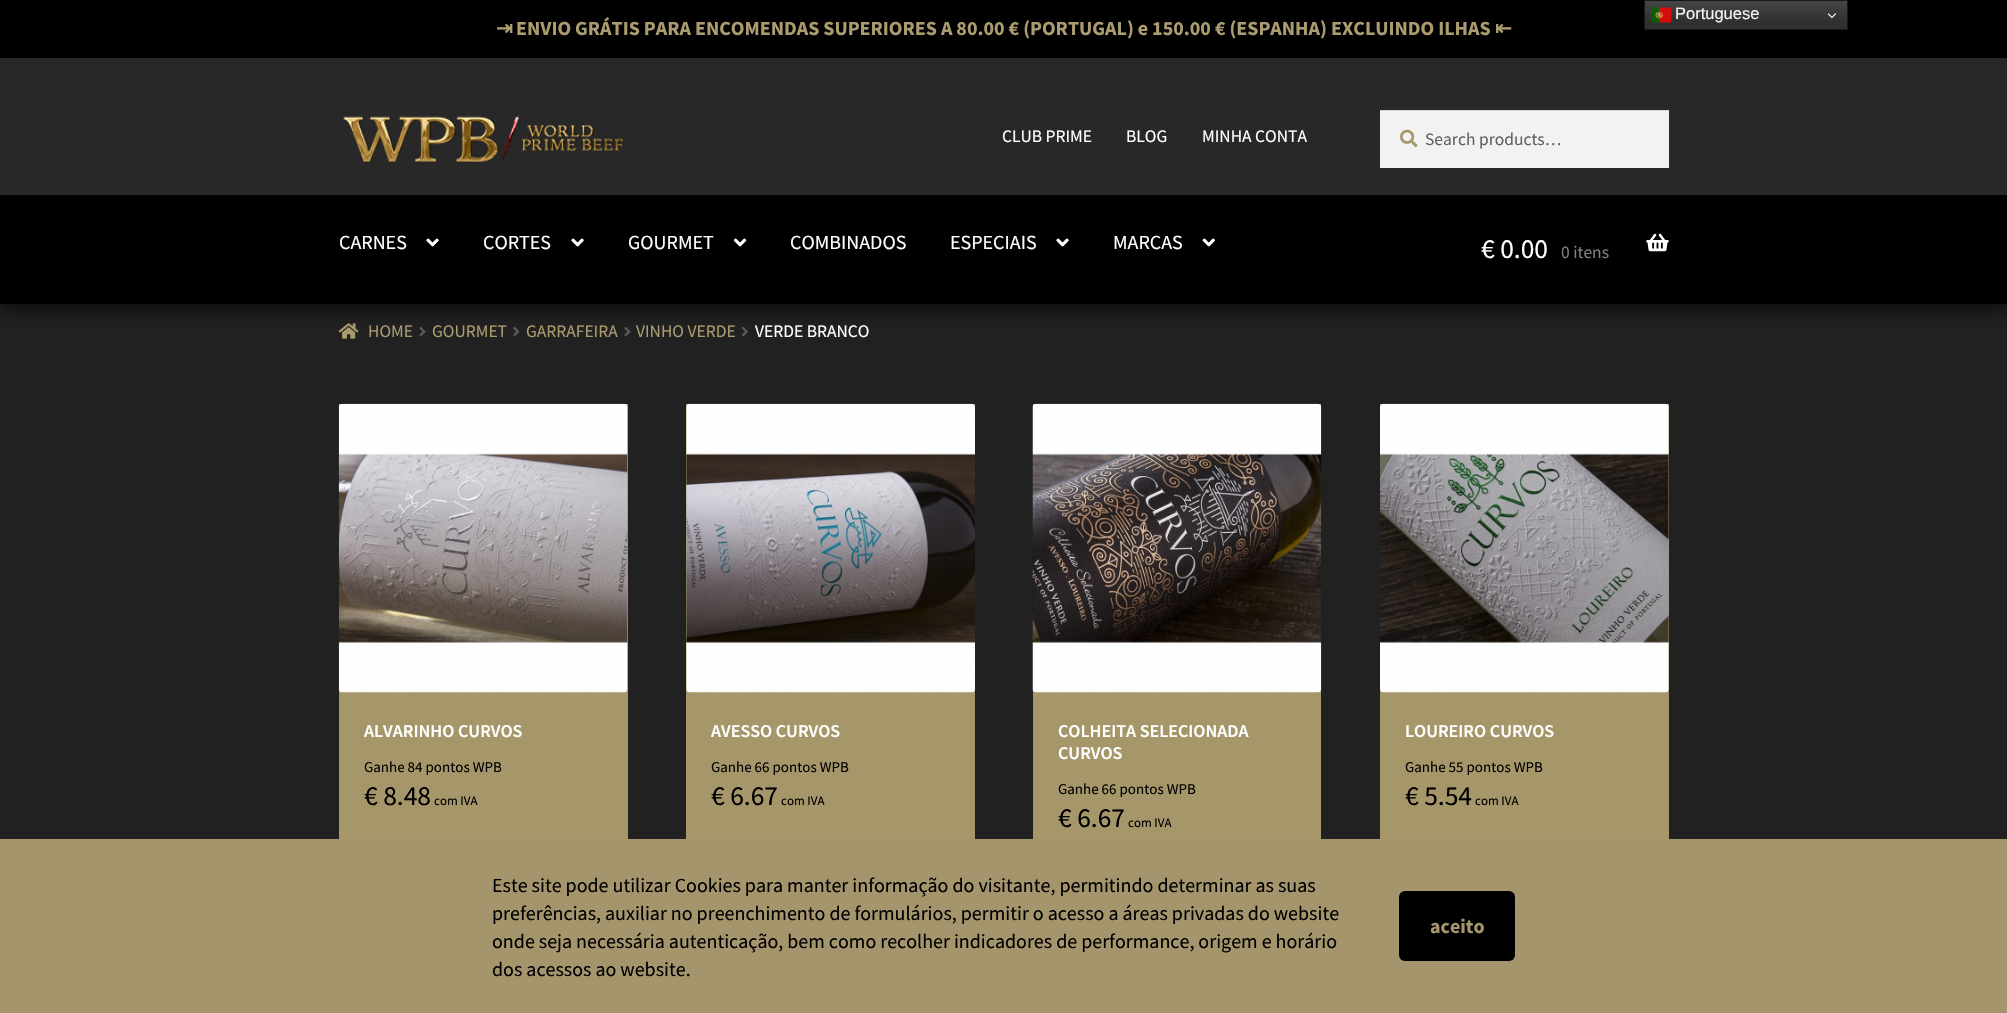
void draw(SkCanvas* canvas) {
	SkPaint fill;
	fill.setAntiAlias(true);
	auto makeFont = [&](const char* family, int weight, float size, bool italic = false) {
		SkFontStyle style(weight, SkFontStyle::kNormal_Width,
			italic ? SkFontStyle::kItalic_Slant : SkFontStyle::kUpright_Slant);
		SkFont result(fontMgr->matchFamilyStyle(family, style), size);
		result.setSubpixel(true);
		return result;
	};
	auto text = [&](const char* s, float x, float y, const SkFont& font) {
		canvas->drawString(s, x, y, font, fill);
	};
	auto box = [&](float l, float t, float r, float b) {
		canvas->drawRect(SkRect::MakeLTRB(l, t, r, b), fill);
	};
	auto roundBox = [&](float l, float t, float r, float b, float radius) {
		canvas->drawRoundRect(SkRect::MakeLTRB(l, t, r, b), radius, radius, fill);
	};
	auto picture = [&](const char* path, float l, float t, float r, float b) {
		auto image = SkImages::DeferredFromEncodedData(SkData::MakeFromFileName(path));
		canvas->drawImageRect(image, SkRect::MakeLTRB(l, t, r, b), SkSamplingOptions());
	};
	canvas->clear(0xFF212121);
	picture("image8.png", 338, 323, 359, 339);
	picture("image9.png", 419, 327, 426, 337);
	picture("image10.png", 513, 327, 520, 337);
	picture("image9.png", 624, 327, 631, 337);
	picture("image11.png", 742, 327, 748, 337);
	fill.setColor(0xBF000000);
	fill.setMaskFilter(SkMaskFilter::MakeBlur(kNormal_SkBlurStyle, 9.5f));
	canvas->drawRect(SkRect::MakeLTRB(0, 60, 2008, 308), fill);
	fill.setMaskFilter(nullptr);
	fill.setColor(0xFF000000);
	box(0, 0, 2007, 58);
	{
		const SkColor colors[] = {0xFF474747, 0xFF303030};
		const float stops[] = {0, 0.7f};
		const SkPoint ends[] = {{1746, 0}, {1746, 30}};
		fill.setShader(SkGradientShader::MakeLinear(ends, colors, stops, 2, SkTileMode::kClamp));
		fill.setAlpha(255);
	}
	box(1645, 1, 1847, 29);
	fill.setStyle(SkPaint::kStroke_Style);
	fill.setStrokeWidth(1);
	fill.setShader(nullptr);
	fill.setColor(0xFF161616);
	canvas->drawRect(SkRect::MakeLTRB(1644.5f, 0.5f, 1847.5f, 29.5f), fill);
	picture("image0.png", 1651, 7, 1672, 23);
	picture("image1.png", 1828, 13, 1836, 19);
	fill.setStyle(SkPaint::kFill_Style);
	fill.setColor(0xFF282828);
	box(0, 58, 2007, 195);
	fill.setColor(0xFF121212);
	box(0, 304, 2007, 305);
	picture("image2.png", 343, 116, 624, 163);
	fill.setColor(0xFFF2F2F2);
	box(1380, 111, 1669, 168);
	picture("image3.png", 1400, 129, 1418, 148);
	fill.setColor(0xFFD4D4D4);
	box(1380, 110, 1669, 111);
	fill.setColor(0xFF000000);
	box(0, 195, 2007, 304);
	picture("image4.png", 426, 238, 439, 247);
	picture("image4.png", 571, 238, 584, 247);
	picture("image5.png", 733, 238, 747, 247);
	picture("image4.png", 1056, 238, 1069, 247);
	picture("image6.png", 1202, 238, 1215, 247);
	picture("image7.png", 1646, 233, 1669, 252);
	fill.setColor(0xFFA6976A);
	box(339, 404, 628, 839);
	picture("image12.png", 338, 403, 628, 693);
	box(686, 404, 975, 839);
	picture("image13.png", 686, 403, 975, 693);
	box(1033, 404, 1321, 839);
	picture("image14.png", 1032, 403, 1322, 693);
	box(1380, 404, 1669, 839);
	picture("image15.png", 1380, 403, 1669, 693);
	fill.setColor(0xFFA5956D);
	box(0, 839, 2007, 1013);
	fill.setColor(0xFF000000);
	roundBox(1399, 891, 1515, 961, 6);
	auto font1 = makeFont("Liberation Sans", 400, 16.5f);
	fill.setColor(0xFFF7F7F7);
	text("Portuguese", 1675, 19, font1);
	auto font2 = makeFont("DejaVu Sans", 700, 20);
	fill.setColor(0xFFAB9C6F);
	text("⇥", 496, 35, font2);
	auto font3 = makeFont("Source Sans Pro", 700, 20);
	text("ENVIO GRÁTIS PARA ENCOMENDAS SUPERIORES A 80.00 € (PORTUGAL) e 150.00 € (ESPANHA) EXCLUINDO ILHAS", 516, 35, font3);
	text("⇤", 1495, 35, font2);
	auto font4 = makeFont("Source Sans Pro", 400, 17.5f);
	fill.setColor(0xFFFFFFFF);
	text("CLUB PRIME", 1002, 142, font4);
	text("BLOG", 1126, 142, font4);
	text("MINHA CONTA", 1202, 142, font4);
	fill.setColor(0xFF616161);
	text("Search products…", 1425, 145, font4);
	auto font5 = makeFont("Source Sans Pro", 400, 20);
	fill.setColor(0xFFFFFFFF);
	text("CARNES", 339, 249, font5);
	text("CORTES", 483, 249, font5);
	text("GOURMET", 628, 249, font5);
	text("COMBINADOS", 790, 249, font5);
	text("ESPECIAIS", 950, 249, font5);
	text("MARCAS", 1113, 249, font5);
	auto font6 = makeFont("Source Sans Pro", 400, 27.5f);
	text("€ 0.00", 1481, 258, font6);
	fill.setColor(0xFF808080);
	text("0 itens", 1561, 258, font4);
	fill.setColor(0xFFAB9C6F);
	text("HOME", 368, 337, font4);
	text("GOURMET", 432, 337, font4);
	text("GARRAFEIRA", 526, 337, font4);
	text("VINHO VERDE", 636, 337, font4);
	fill.setColor(0xFFFFFFFF);
	text("VERDE BRANCO", 755, 337, font4);
	auto font7 = makeFont("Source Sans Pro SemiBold", 600, 18);
	text("ALVARINHO CURVOS", 364, 737, font7);
	auto font8 = makeFont("Source Sans Pro", 400, 15);
	fill.setColor(0xFF000000);
	text("Ganhe 84 pontos WPB", 364, 772, font8);
	text("€ 8.48", 364, 805, font6);
	auto font9 = makeFont("Source Sans Pro", 400, 13);
	text("com IVA", 434, 805, font9);
	fill.setColor(0xFFFFFFFF);
	text("AVESSO CURVOS", 711, 737, font7);
	fill.setColor(0xFF000000);
	text("Ganhe 66 pontos WPB", 711, 772, font8);
	text("€ 6.67", 711, 805, font6);
	text("com IVA", 781, 805, font9);
	fill.setColor(0xFFFFFFFF);
	text("COLHEITA SELECIONADA", 1058, 737, font7);
	text("CURVOS", 1058, 759, font7);
	fill.setColor(0xFF000000);
	text("Ganhe 66 pontos WPB", 1058, 794, font8);
	text("€ 6.67", 1058, 827, font6);
	text("com IVA", 1128, 827, font9);
	fill.setColor(0xFFFFFFFF);
	text("LOUREIRO CURVOS", 1405, 737, font7);
	fill.setColor(0xFF000000);
	text("Ganhe 55 pontos WPB", 1405, 772, font8);
	text("€ 5.54", 1405, 805, font6);
	text("com IVA", 1475, 805, font9);
	text("Este site pode utilizar Cookies para manter informação do visitante, permitindo determinar as suas", 492, 892, font5);
	text("preferências, auxiliar no preenchimento de formulários, permitir o acesso a áreas privadas do website", 492, 920, font5);
	text("onde seja necessária autenticação, bem como recolher indicadores de performance, origem e horário", 492, 948, font5);
	text("dos acessos ao website.", 492, 976, font5);
	fill.setColor(0xFFA5956D);
	text("aceito", 1430, 933, font3);
}
